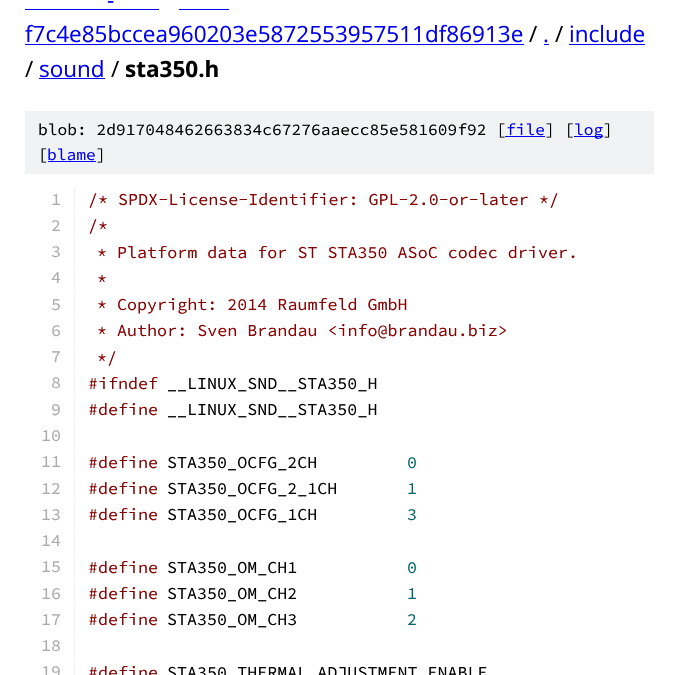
void draw(SkCanvas* canvas) {
	SkPaint fill;
	fill.setAntiAlias(true);
	auto makeFont = [&](const char* family, int weight, float size, bool italic = false) {
		SkFontStyle style(weight, SkFontStyle::kNormal_Width,
			italic ? SkFontStyle::kItalic_Slant : SkFontStyle::kUpright_Slant);
		SkFont result(fontMgr->matchFamilyStyle(family, style), size);
		result.setSubpixel(true);
		return result;
	};
	auto text = [&](const char* s, float x, float y, const SkFont& font) {
		canvas->drawString(s, x, y, font, fill);
	};
	auto box = [&](float l, float t, float r, float b) {
		canvas->drawRect(SkRect::MakeLTRB(l, t, r, b), fill);
	};
	canvas->clear(0xFFFFFFFF);
	fill.setColor(0xFF0000EE);
	box(25, 9, 159, 10);
	box(179, 9, 229, 10);
	box(25, 44, 524, 45);
	box(544, 44, 549, 45);
	box(569, 44, 645, 45);
	box(39, 78, 105, 79);
	fill.setColor(0xFFF1F2F3);
	box(25, 111, 654, 174);
	fill.setColor(0xFF0000EE);
	box(505, 136, 545, 137);
	box(574, 136, 603, 137);
	box(48, 161, 96, 162);
	fill.setColor(0xFFF1F2F3);
	box(74, 188, 75, 213);
	box(74, 214, 75, 239);
	box(74, 240, 75, 265);
	box(74, 266, 75, 291);
	box(74, 293, 75, 318);
	box(74, 319, 75, 344);
	box(74, 345, 75, 370);
	box(74, 371, 75, 396);
	box(74, 398, 75, 423);
	box(74, 424, 75, 449);
	box(74, 450, 75, 475);
	box(74, 476, 75, 501);
	box(74, 503, 75, 528);
	box(74, 529, 75, 554);
	box(74, 555, 75, 580);
	box(74, 581, 75, 606);
	box(74, 608, 75, 633);
	box(74, 634, 75, 659);
	box(74, 660, 75, 675);
	auto font1 = makeFont("Open Sans", 400, 22.5f);
	fill.setColor(0xFF0000EE);
	text("-", 107, 8, font1);
	text("f7c4e85bccea960203e5872553957511df86913e", 25, 42, font1);
	fill.setColor(0xFF000000);
	text("/", 529, 42, font1);
	fill.setColor(0xFF0000EE);
	text(".", 543, 42, font1);
	fill.setColor(0xFF000000);
	text("/", 555, 42, font1);
	fill.setColor(0xFF0000EE);
	text("include", 569, 42, font1);
	fill.setColor(0xFF000000);
	text("/", 25, 77, font1);
	fill.setColor(0xFF0000EE);
	text("sound", 39, 77, font1);
	fill.setColor(0xFF000000);
	text("/", 111, 77, font1);
	auto font2 = makeFont("Open Sans", 700, 22.5f);
	text("sta350.h", 125, 77, font2);
	auto font3 = makeFont("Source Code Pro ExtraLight", 200, 16.25f);
	text("blob: 2d917048462663834c67276aaecc85e581609f92 [", 38, 135, font3);
	fill.setColor(0xFF0000EE);
	text("file", 506, 135, font3);
	fill.setColor(0xFF000000);
	text("] [", 545, 135, font3);
	fill.setColor(0xFF0000EE);
	text("log", 574, 135, font3);
	fill.setColor(0xFF000000);
	text("]", 603, 135, font3);
	text("[", 38, 160, font3);
	fill.setColor(0xFF0000EE);
	text("blame", 47, 160, font3);
	fill.setColor(0xFF000000);
	text("]", 96, 160, font3);
	auto font4 = makeFont("Source Code Pro ExtraLight", 200, 16.7f);
	fill.setColor(0xFFAAAAAA);
	text("1", 51, 205, font4);
	fill.setColor(0xFF880000);
	text("/* SPDX-License-Identifier: GPL-2.0-or-later */", 88, 205, font4);
	fill.setColor(0xFFAAAAAA);
	text("2", 51, 231, font4);
	fill.setColor(0xFF880000);
	text("/*", 88, 231, font4);
	fill.setColor(0xFFAAAAAA);
	text("3", 51, 257, font4);
	fill.setColor(0xFF880000);
	text("* Platform data for ST STA350 ASoC codec driver.", 97, 258, font4);
	fill.setColor(0xFFAAAAAA);
	text("4", 51, 283, font4);
	fill.setColor(0xFF880000);
	text("*", 97, 284, font4);
	fill.setColor(0xFFAAAAAA);
	text("5", 51, 310, font4);
	fill.setColor(0xFF880000);
	text("* Copyright: 2014 Raumfeld GmbH", 97, 310, font4);
	fill.setColor(0xFFAAAAAA);
	text("6", 51, 336, font4);
	fill.setColor(0xFF880000);
	text("* Author: Sven Brandau <info@brandau.biz>", 97, 336, font4);
	fill.setColor(0xFFAAAAAA);
	text("7", 51, 362, font4);
	fill.setColor(0xFF880000);
	text("*/", 97, 363, font4);
	fill.setColor(0xFFAAAAAA);
	text("8", 51, 388, font4);
	fill.setColor(0xFF880000);
	text("#ifndef", 88, 389, font4);
	fill.setColor(0xFF000000);
	text("__LINUX_SND__STA350_H", 167, 389, font4);
	fill.setColor(0xFFAAAAAA);
	text("9", 51, 415, font4);
	fill.setColor(0xFF880000);
	text("#define", 88, 415, font4);
	fill.setColor(0xFF000000);
	text("__LINUX_SND__STA350_H", 167, 415, font4);
	fill.setColor(0xFFAAAAAA);
	text("10", 41, 441, font4);
	text("11", 41, 467, font4);
	fill.setColor(0xFF880000);
	text("#define", 88, 468, font4);
	fill.setColor(0xFF000000);
	text("STA350_OCFG_2CH", 167, 468, font4);
	fill.setColor(0xFF006666);
	text("0", 407, 468, font4);
	fill.setColor(0xFFAAAAAA);
	text("12", 41, 494, font4);
	fill.setColor(0xFF880000);
	text("#define", 88, 494, font4);
	fill.setColor(0xFF000000);
	text("STA350_OCFG_2_1CH", 167, 494, font4);
	fill.setColor(0xFF006666);
	text("1", 407, 494, font4);
	fill.setColor(0xFFAAAAAA);
	text("13", 41, 520, font4);
	fill.setColor(0xFF880000);
	text("#define", 88, 520, font4);
	fill.setColor(0xFF000000);
	text("STA350_OCFG_1CH", 167, 520, font4);
	fill.setColor(0xFF006666);
	text("3", 407, 520, font4);
	fill.setColor(0xFFAAAAAA);
	text("14", 41, 546, font4);
	text("15", 41, 572, font4);
	fill.setColor(0xFF880000);
	text("#define", 88, 573, font4);
	fill.setColor(0xFF000000);
	text("STA350_OM_CH1", 167, 573, font4);
	fill.setColor(0xFF006666);
	text("0", 407, 573, font4);
	fill.setColor(0xFFAAAAAA);
	text("16", 41, 599, font4);
	fill.setColor(0xFF880000);
	text("#define", 88, 599, font4);
	fill.setColor(0xFF000000);
	text("STA350_OM_CH2", 167, 599, font4);
	fill.setColor(0xFF006666);
	text("1", 407, 599, font4);
	fill.setColor(0xFFAAAAAA);
	text("17", 41, 625, font4);
	fill.setColor(0xFF880000);
	text("#define", 88, 625, font4);
	fill.setColor(0xFF000000);
	text("STA350_OM_CH3", 167, 625, font4);
	fill.setColor(0xFF006666);
	text("2", 407, 625, font4);
	fill.setColor(0xFFAAAAAA);
	text("18", 41, 651, font4);
	text("19", 41, 677, font4);
	fill.setColor(0xFF880000);
	text("#define", 88, 678, font4);
	fill.setColor(0xFF000000);
	text("STA350_THERMAL_ADJUSTMENT_ENABLE", 167, 678, font4);
}
